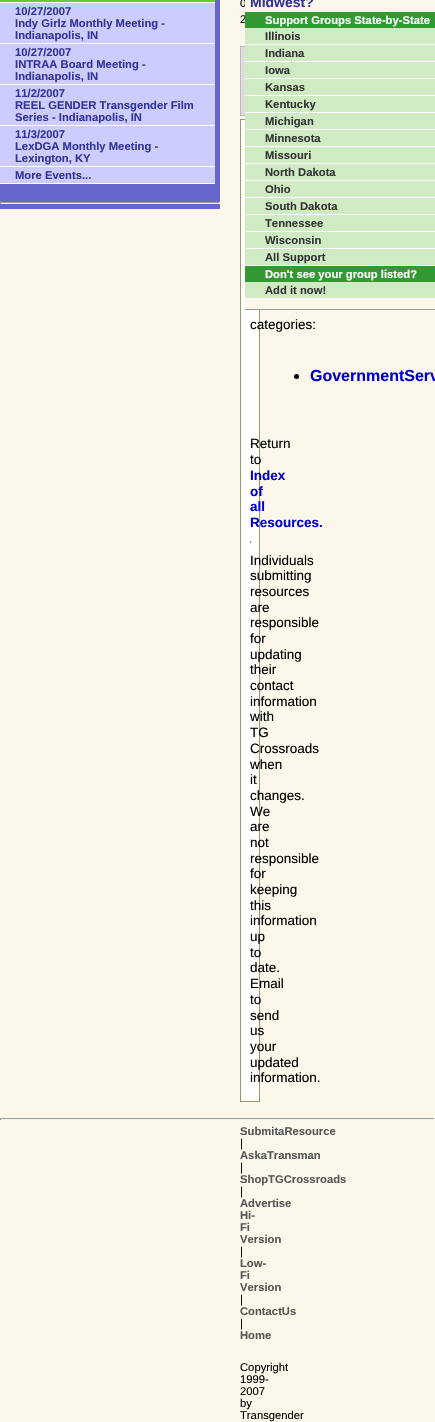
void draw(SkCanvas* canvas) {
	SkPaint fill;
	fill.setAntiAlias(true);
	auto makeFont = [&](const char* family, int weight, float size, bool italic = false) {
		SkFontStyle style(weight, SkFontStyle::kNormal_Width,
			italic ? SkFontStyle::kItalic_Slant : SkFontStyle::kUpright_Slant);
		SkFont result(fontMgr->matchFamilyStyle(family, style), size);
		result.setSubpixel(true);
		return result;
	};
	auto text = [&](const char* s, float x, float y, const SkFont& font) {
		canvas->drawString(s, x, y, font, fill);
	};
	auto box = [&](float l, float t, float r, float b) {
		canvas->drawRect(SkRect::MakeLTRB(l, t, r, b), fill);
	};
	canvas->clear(0xFFFBF7EA);
	fill.setColor(0xFFDDDDDD);
	box(241, 47, 245, 115);
	fill.setStyle(SkPaint::kStroke_Style);
	fill.setStrokeWidth(1);
	fill.setColor(0xFFBBBBBB);
	canvas->drawRect(SkRect::MakeLTRB(240.5f, 46.5f, 281.5f, 115.5f), fill);
	fill.setStyle(SkPaint::kFill_Style);
	fill.setColor(0xFFFFFFFF);
	canvas->drawRect(SkRect::MakeLTRB(240.5f, 119.5f, 259.5f, 1101.5f), fill);
	fill.setStyle(SkPaint::kStroke_Style);
	fill.setColor(0xFF999966);
	canvas->drawRect(SkRect::MakeLTRB(240.5f, 119.5f, 259.5f, 1101.5f), fill);
	fill.setStyle(SkPaint::kFill_Style);
	fill.setColor(0xFF000000);
	canvas->drawCircle(296.5f, 376.5f, 2.5f, fill);
	fill.setColor(0xFFEEEEEE);
	box(251, 541, 252, 543);
	box(250, 542, 252, 543);
	fill.setColor(0xFF9F9F9F);
	box(250, 541, 251, 543);
	fill.setColor(0xFF6666CC);
	box(0, 0, 220, 209);
	fill.setColor(0xFFEEEEEE);
	box(0, 209, 220, 210);
	fill.setColor(0xFF66CC33);
	box(0, 0, 215, 2);
	fill.setColor(0xFFFFFFFF);
	box(0, 2, 215, 3);
	fill.setColor(0xFFCCCCFF);
	box(0, 3, 215, 43);
	fill.setColor(0xFFFFFFFF);
	box(0, 43, 215, 44);
	fill.setColor(0xFFCCCCFF);
	box(0, 44, 215, 84);
	fill.setColor(0xFFFFFFFF);
	box(0, 84, 215, 85);
	fill.setColor(0xFFCCCCFF);
	box(0, 85, 215, 125);
	fill.setColor(0xFFFFFFFF);
	box(0, 125, 215, 126);
	fill.setColor(0xFFCCCCFF);
	box(0, 126, 215, 166);
	fill.setColor(0xFFFFFFFF);
	box(0, 166, 215, 167);
	fill.setColor(0xFFCCCCFF);
	box(0, 167, 215, 183);
	fill.setColor(0xFFFFFFFF);
	box(0, 183, 215, 184);
	fill.setColor(0xFF9F9F9F);
	box(0, 202, 220, 203);
	fill.setColor(0xFFEEEEEE);
	box(219, 202, 220, 204);
	box(0, 203, 220, 204);
	fill.setColor(0xFF9F9F9F);
	box(0, 202, 1, 204);
	fill.setColor(0xFF999999);
	box(245, 309, 435, 310);
	fill.setColor(0xFF9F9F9F);
	box(0, 1118, 435, 1119);
	fill.setColor(0xFFEEEEEE);
	box(434, 1118, 435, 1120);
	box(0, 1119, 435, 1120);
	fill.setColor(0xFF9F9F9F);
	box(0, 1118, 1, 1120);
	auto font1 = makeFont("Liberation Sans", 400, 11.25f);
	fill.setColor(0xFF000000);
	text("0", 240, 7, font1);
	text("2", 240, 23, font1);
	auto font2 = makeFont("Liberation Sans", 400, 13.5f);
	text("categories:", 250, 329, font2);
	auto font3 = makeFont("Liberation Sans", 700, 16);
	fill.setColor(0xFF0000CC);
	text("GovernmentServ", 310, 381, font3);
	fill.setColor(0xFF000000);
	text("Return", 250, 448, font2);
	text("to", 250, 464, font2);
	auto font4 = makeFont("Liberation Sans", 700, 13.5f);
	fill.setColor(0xFF0000CC);
	text("Index", 250, 480, font4);
	text("of", 250, 496, font4);
	text("all", 250, 511, font4);
	text("Resources.", 250, 527, font4);
	fill.setColor(0xFF000000);
	text("Individuals", 250, 565, font2);
	text("submitting", 250, 580, font2);
	text("resources", 250, 596, font2);
	text("are", 250, 612, font2);
	text("responsible", 250, 627, font2);
	text("for", 250, 643, font2);
	text("updating", 250, 659, font2);
	text("their", 250, 674, font2);
	text("contact", 250, 690, font2);
	text("information", 250, 706, font2);
	text("with", 250, 721, font2);
	text("TG", 250, 737, font2);
	text("Crossroads", 250, 753, font2);
	text("when", 250, 769, font2);
	text("it", 250, 784, font2);
	text("changes.", 250, 800, font2);
	text("We", 250, 816, font2);
	text("are", 250, 831, font2);
	text("not", 250, 847, font2);
	text("responsible", 250, 863, font2);
	text("for", 250, 878, font2);
	text("keeping", 250, 894, font2);
	text("this", 250, 910, font2);
	text("information", 250, 925, font2);
	text("up", 250, 941, font2);
	text("to", 250, 957, font2);
	text("date.", 250, 972, font2);
	text("Email", 250, 988, font2);
	text("to", 250, 1004, font2);
	text("send", 250, 1020, font2);
	text("us", 250, 1035, font2);
	text("your", 250, 1051, font2);
	text("updated", 250, 1067, font2);
	text("information.", 250, 1082, font2);
	auto font5 = makeFont("Liberation Sans", 700, 11.25f);
	fill.setColor(0xFF333399);
	text("10/27/2007", 15, 15, font5);
	text("Indy Girlz Monthly Meeting -", 15, 27, font5);
	text("Indianapolis, IN", 15, 39, font5);
	text("10/27/2007", 15, 56, font5);
	text("INTRAA Board Meeting -", 15, 68, font5);
	text("Indianapolis, IN", 15, 80, font5);
	text("11/2/2007", 15, 97, font5);
	text("REEL GENDER Transgender Film", 15, 109, font5);
	text("Series - Indianapolis, IN", 15, 121, font5);
	text("11/3/2007", 15, 138, font5);
	text("LexDGA Monthly Meeting -", 15, 150, font5);
	text("Lexington, KY", 15, 162, font5);
	text("More Events...", 15, 179, font5);
	fill.setColor(0xFFFBF7EA);
	box(245, 0, 282, 309);
	auto font6 = makeFont("Liberation Sans", 700, 14);
	fill.setColor(0xFF333399);
	text("Midwest?", 250, 7, font6);
	fill.setColor(0xFF339933);
	box(245, 12, 435, 28);
	fill.setColor(0xFFFFFFFF);
	text("Support Groups State-by-State", 265, 24, font5);
	fill.setColor(0xFFD0EAC4);
	box(245, 28, 435, 44);
	fill.setColor(0xFFFFFFFF);
	box(245, 44, 435, 45);
	fill.setColor(0xFF333333);
	text("Illinois", 265, 40, font5);
	fill.setColor(0xFFD0EAC4);
	box(245, 45, 435, 61);
	fill.setColor(0xFFFFFFFF);
	box(245, 61, 435, 62);
	fill.setColor(0xFF333333);
	text("Indiana", 265, 57, font5);
	fill.setColor(0xFFD0EAC4);
	box(245, 62, 435, 78);
	fill.setColor(0xFFFFFFFF);
	box(245, 78, 435, 79);
	fill.setColor(0xFF333333);
	text("Iowa", 265, 74, font5);
	fill.setColor(0xFFD0EAC4);
	box(245, 79, 435, 95);
	fill.setColor(0xFFFFFFFF);
	box(245, 95, 435, 96);
	fill.setColor(0xFF333333);
	text("Kansas", 265, 91, font5);
	fill.setColor(0xFFD0EAC4);
	box(245, 96, 435, 112);
	fill.setColor(0xFFFFFFFF);
	box(245, 112, 435, 113);
	fill.setColor(0xFF333333);
	text("Kentucky", 265, 108, font5);
	fill.setColor(0xFFD0EAC4);
	box(245, 113, 435, 129);
	fill.setColor(0xFFFFFFFF);
	box(245, 129, 435, 130);
	fill.setColor(0xFF333333);
	text("Michigan", 265, 125, font5);
	fill.setColor(0xFFD0EAC4);
	box(245, 130, 435, 146);
	fill.setColor(0xFFFFFFFF);
	box(245, 146, 435, 147);
	fill.setColor(0xFF333333);
	text("Minnesota", 265, 142, font5);
	fill.setColor(0xFFD0EAC4);
	box(245, 147, 435, 163);
	fill.setColor(0xFFFFFFFF);
	box(245, 163, 435, 164);
	fill.setColor(0xFF333333);
	text("Missouri", 265, 159, font5);
	fill.setColor(0xFFD0EAC4);
	box(245, 164, 435, 180);
	fill.setColor(0xFFFFFFFF);
	box(245, 180, 435, 181);
	fill.setColor(0xFF333333);
	text("North Dakota", 265, 176, font5);
	fill.setColor(0xFFD0EAC4);
	box(245, 181, 435, 197);
	fill.setColor(0xFFFFFFFF);
	box(245, 197, 435, 198);
	fill.setColor(0xFF333333);
	text("Ohio", 265, 193, font5);
	fill.setColor(0xFFD0EAC4);
	box(245, 198, 435, 214);
	fill.setColor(0xFFFFFFFF);
	box(245, 214, 435, 215);
	fill.setColor(0xFF333333);
	text("South Dakota", 265, 210, font5);
	fill.setColor(0xFFD0EAC4);
	box(245, 215, 435, 231);
	fill.setColor(0xFFFFFFFF);
	box(245, 231, 435, 232);
	fill.setColor(0xFF333333);
	text("Tennessee", 265, 227, font5);
	fill.setColor(0xFFD0EAC4);
	box(245, 232, 435, 248);
	fill.setColor(0xFFFFFFFF);
	box(245, 248, 435, 249);
	fill.setColor(0xFF333333);
	text("Wisconsin", 265, 244, font5);
	fill.setColor(0xFFD0EAC4);
	box(245, 249, 435, 265);
	fill.setColor(0xFFFFFFFF);
	box(245, 265, 435, 266);
	fill.setColor(0xFF333333);
	text("All Support", 265, 261, font5);
	fill.setColor(0xFF339933);
	box(245, 266, 435, 282);
	fill.setColor(0xFFFFFFFF);
	text("Don't see your group listed?", 265, 278, font5);
	fill.setColor(0xFFD0EAC4);
	box(245, 282, 435, 298);
	fill.setColor(0xFFFFFFFF);
	box(245, 298, 435, 299);
	fill.setColor(0xFF333333);
	text("Add it now!", 265, 294, font5);
	fill.setColor(0xFF555555);
	text("SubmitaResource", 240, 1135, font5);
	fill.setColor(0xFF000000);
	text("|", 240, 1147, font1);
	fill.setColor(0xFF555555);
	text("AskaTransman", 240, 1159, font5);
	fill.setColor(0xFF000000);
	text("|", 240, 1171, font1);
	fill.setColor(0xFF555555);
	text("ShopTGCrossroads", 240, 1183, font5);
	fill.setColor(0xFF000000);
	text("|", 240, 1195, font1);
	fill.setColor(0xFF555555);
	text("Advertise", 240, 1207, font5);
	text("Hi-", 240, 1219, font5);
	text("Fi", 240, 1231, font5);
	text("Version", 240, 1243, font5);
	fill.setColor(0xFF000000);
	text("|", 240, 1255, font1);
	fill.setColor(0xFF555555);
	text("Low-", 240, 1267, font5);
	text("Fi", 240, 1279, font5);
	text("Version", 240, 1291, font5);
	fill.setColor(0xFF000000);
	text("|", 240, 1303, font1);
	fill.setColor(0xFF555555);
	text("ContactUs", 240, 1315, font5);
	fill.setColor(0xFF000000);
	text("|", 240, 1327, font1);
	fill.setColor(0xFF555555);
	text("Home", 240, 1339, font5);
	fill.setColor(0xFF000000);
	text("Copyright", 240, 1371, font1);
	text("1999-", 240, 1383, font1);
	text("2007", 240, 1395, font1);
	text("by", 240, 1407, font1);
	text("Transgender", 240, 1419, font1);
}
